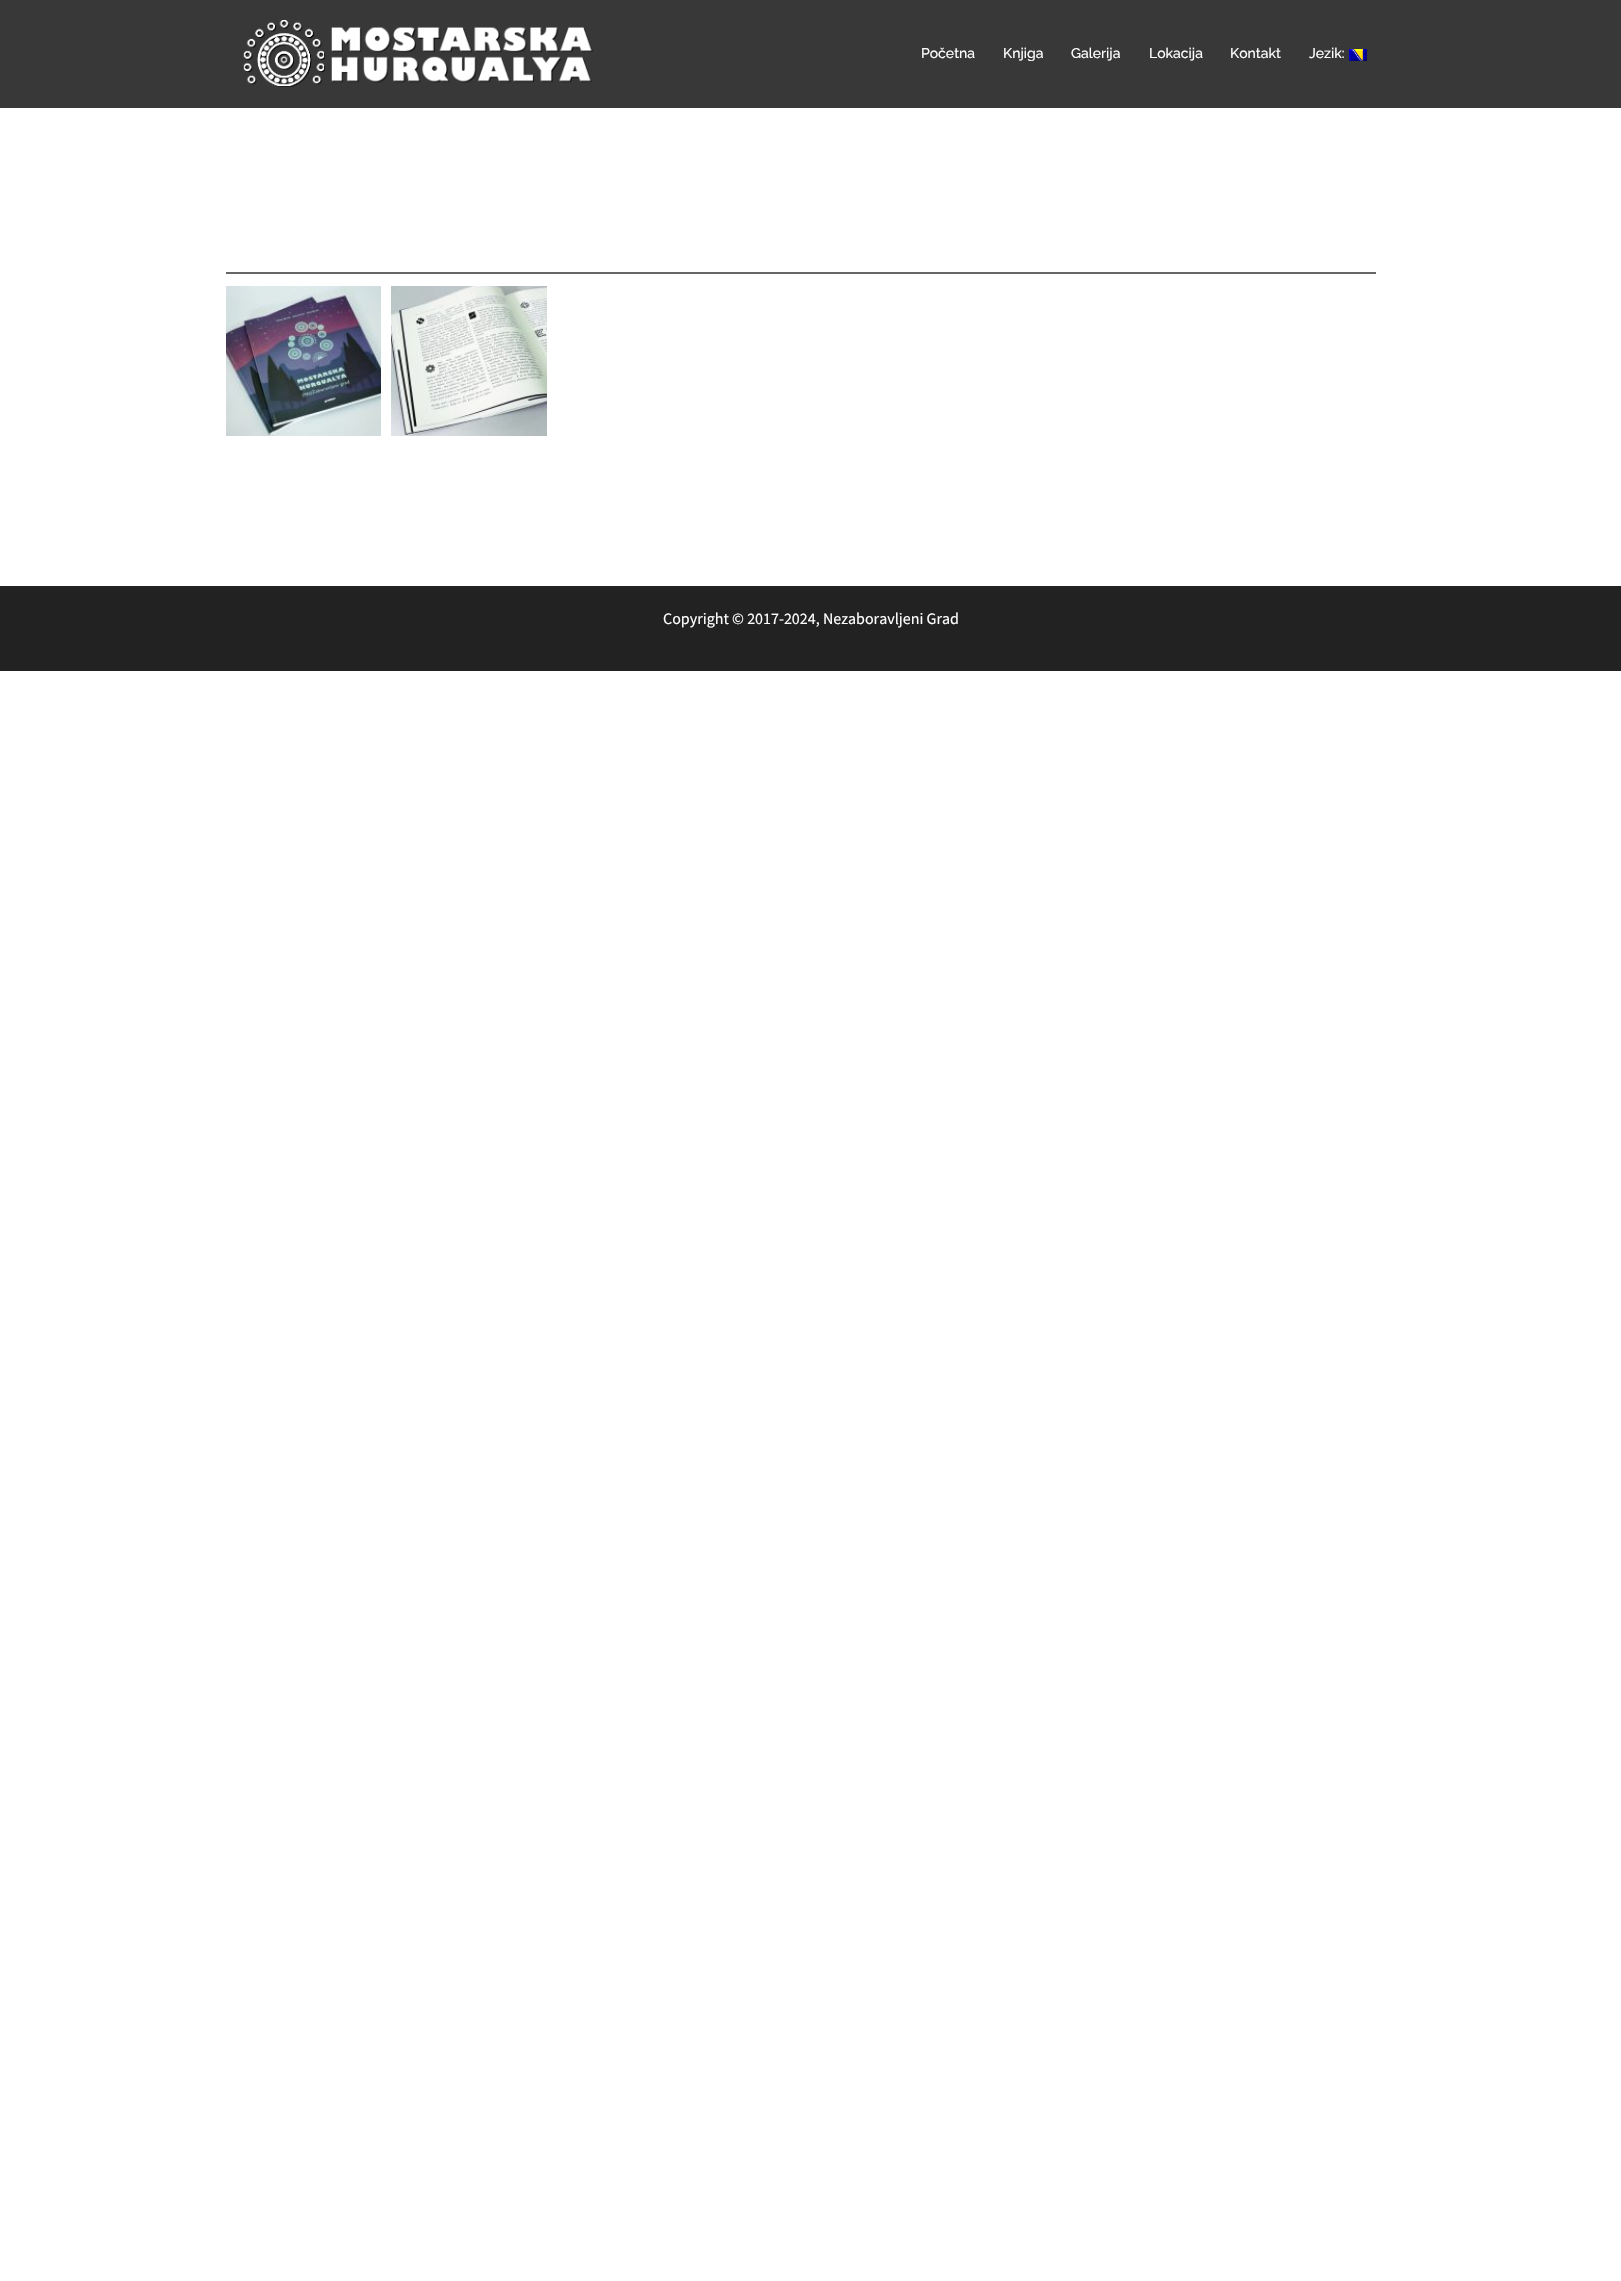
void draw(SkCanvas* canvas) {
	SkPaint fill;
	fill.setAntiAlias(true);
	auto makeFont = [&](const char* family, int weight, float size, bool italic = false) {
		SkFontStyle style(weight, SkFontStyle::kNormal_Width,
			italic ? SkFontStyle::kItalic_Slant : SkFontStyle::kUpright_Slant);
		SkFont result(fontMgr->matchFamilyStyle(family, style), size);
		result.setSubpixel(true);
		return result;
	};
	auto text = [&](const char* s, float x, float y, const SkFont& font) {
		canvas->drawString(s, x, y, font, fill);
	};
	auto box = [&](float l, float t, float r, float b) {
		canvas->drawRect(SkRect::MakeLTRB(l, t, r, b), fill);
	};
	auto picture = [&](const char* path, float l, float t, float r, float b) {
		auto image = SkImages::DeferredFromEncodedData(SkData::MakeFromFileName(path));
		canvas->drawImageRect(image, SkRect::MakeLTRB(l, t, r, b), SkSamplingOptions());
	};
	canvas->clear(0xFFFFFFFF);
	fill.setColor(0xFF383838);
	box(0, 0, 1621, 108);
	picture("image0.png", 243, 20, 593, 87);
	picture("image1.png", 1349, 49, 1367, 61);
	fill.setColor(0xFF666666);
	box(226, 272, 1376, 274);
	picture("image2.png", 226, 286, 381, 436);
	picture("image3.png", 391, 286, 547, 436);
	fill.setColor(0xFF222222);
	box(0, 586, 1621, 671);
	auto font1 = makeFont("Raleway", 500, 14);
	fill.setColor(0xFFFFFFFF);
	text("Početna", 921, 58, font1);
	text("Knjiga", 1003, 58, font1);
	text("Galerija", 1071, 58, font1);
	text("Lokacija", 1149, 58, font1);
	text("Kontakt", 1230, 58, font1);
	text("Jezik:", 1309, 58, font1);
	auto font2 = makeFont("Source Sans Pro", 400, 16);
	text("Copyright © 2017-2024, Nezaboravljeni Grad", 663, 624, font2);
}
